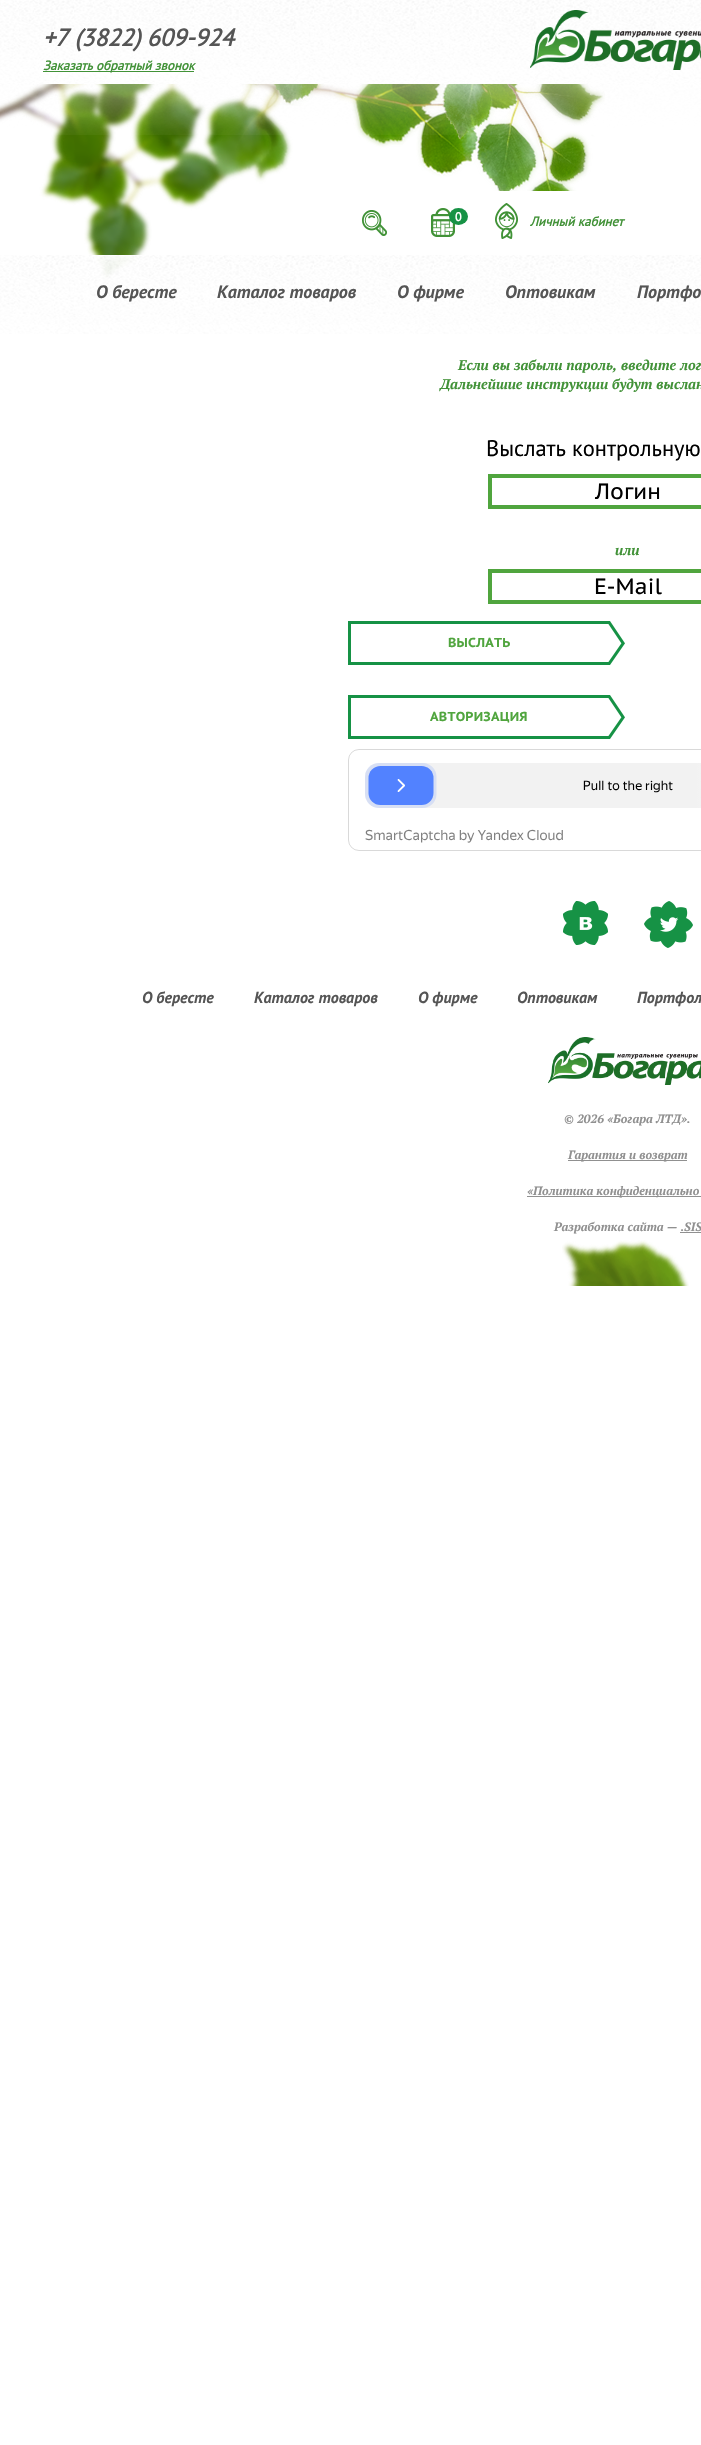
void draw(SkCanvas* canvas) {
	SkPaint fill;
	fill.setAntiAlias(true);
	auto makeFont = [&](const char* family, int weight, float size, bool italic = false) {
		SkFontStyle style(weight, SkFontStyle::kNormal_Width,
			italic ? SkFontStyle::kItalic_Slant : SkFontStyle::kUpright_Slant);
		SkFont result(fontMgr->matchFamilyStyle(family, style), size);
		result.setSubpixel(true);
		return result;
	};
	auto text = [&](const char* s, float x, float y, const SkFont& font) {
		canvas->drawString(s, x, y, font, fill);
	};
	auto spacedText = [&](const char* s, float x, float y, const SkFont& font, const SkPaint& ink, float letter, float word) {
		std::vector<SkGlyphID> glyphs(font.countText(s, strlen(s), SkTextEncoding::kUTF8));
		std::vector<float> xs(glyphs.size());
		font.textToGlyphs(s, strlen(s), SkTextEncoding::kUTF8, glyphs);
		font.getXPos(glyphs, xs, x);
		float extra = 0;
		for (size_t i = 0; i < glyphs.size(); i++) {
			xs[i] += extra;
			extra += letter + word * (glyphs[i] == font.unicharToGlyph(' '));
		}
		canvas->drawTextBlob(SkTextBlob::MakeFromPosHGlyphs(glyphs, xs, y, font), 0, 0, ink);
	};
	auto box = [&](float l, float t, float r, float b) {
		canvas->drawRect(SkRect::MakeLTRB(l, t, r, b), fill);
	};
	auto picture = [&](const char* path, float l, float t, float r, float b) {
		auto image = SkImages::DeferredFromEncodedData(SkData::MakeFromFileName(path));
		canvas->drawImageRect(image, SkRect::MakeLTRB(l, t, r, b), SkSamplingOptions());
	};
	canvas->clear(0xFFFFFFFF);
	picture("image5.png", 0, 84, 519, 280);
	picture("image6.png", 270, 84, 605, 191);
	picture("image0.png", 0, 0, 701, 135);
	fill.setColor(0xFF419237);
	box(43, 71, 194, 72);
	picture("image1.png", 530, 10, 701, 70);
	picture("image2.png", 362, 210, 387, 236);
	picture("image3.png", 431, 208, 455, 237);
	fill.setColor(0xFF169245);
	canvas->drawOval(SkRect::MakeLTRB(449, 208, 468, 225), fill);
	picture("image4.png", 495, 203, 518, 239);
	picture("image7.png", 0, 255, 701, 334);
	fill.setStyle(SkPaint::kStroke_Style);
	fill.setStrokeWidth(4);
	fill.setColor(0xFF50A53E);
	canvas->drawRect(SkRect::MakeLTRB(490, 476, 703, 507), fill);
	canvas->drawRect(SkRect::MakeLTRB(490, 571, 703, 602), fill);
	fill.setStyle(SkPaint::kFill_Style);
	fill.setColor(0xFF169245);
	box(348, 621, 608, 624);
	box(348, 662, 608, 665);
	box(348, 621, 351, 665);
	picture("image8.png", 608, 621, 625, 665);
	box(348, 695, 608, 698);
	box(348, 736, 608, 739);
	box(348, 695, 351, 739);
	picture("image8.png", 608, 695, 625, 739);
	picture("image9.png", 348, 749, 701, 851);
	picture("image10.png", 563, 901, 608, 945);
	picture("image11.png", 644, 901, 693, 948);
	picture("image12.png", 548, 1037, 701, 1085);
	fill.setColor(0xFF909090);
	box(568, 1160, 687, 1161);
	box(527, 1196, 701, 1197);
	box(680, 1232, 701, 1233);
	picture("image13.png", 562, 1240, 689, 1286);
	auto font1 = makeFont("PT Sans", 700, 24, true);
	fill.setColor(0xFF555555);
	text("+7 (3822) 609-924", 43, 46, font1);
	auto font2 = makeFont("PT Sans", 700, 13, true);
	fill.setColor(0xFF429238);
	text("Заказать обратный звонок", 43, 70, font2);
	auto font3 = makeFont("PT Sans", 700, 12);
	fill.setColor(0xFFFFFFFF);
	text("0", 455, 221, font3);
	fill.setColor(0xFF429238);
	text("Личный кабинет", 530, 226, font2);
	auto font4 = makeFont("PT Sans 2", 700, 18, true);
	fill.setColor(0xFF555555);
	text("О бересте", 96, 298, font4);
	text("Каталог товаров", 217, 298, font4);
	text("О фирме", 397, 298, font4);
	text("Оптовикам", 505, 298, font4);
	text("Портфо", 637, 298, font4);
	auto font5 = makeFont("PT Serif", 700, 14, true);
	fill.setColor(0xFF429238);
	text("Если вы забыли пароль, введите лог", 458, 370, font5);
	text("Дальнейшие инструкции будут выслан", 440, 389, font5);
	auto font6 = makeFont("PT Sans", 400, 22.5f);
	fill.setColor(0xFF000000);
	text("Выслать контрольную", 486, 456, font6);
	auto font7 = makeFont("PT Sans Caption", 400, 22);
	text("Логин", 595, 499, font7);
	fill.setColor(0xFF429238);
	text("или", 615, 555, font5);
	fill.setColor(0xFF000000);
	text("E-Mail", 594, 594, font7);
	auto font8 = makeFont("PT Sans Caption", 700, 13);
	fill.setColor(0xFF50A53E);
	spacedText("ВЫСЛАТЬ", 448, 647, font8, fill, 0.25f, 0);
	spacedText("АВТОРИЗАЦИЯ", 430, 721, font8, fill, 0.25f, 0);
	auto font9 = makeFont("PT Sans 2", 700, 16, true);
	fill.setColor(0xFF555555);
	text("О бересте", 142, 1003, font9);
	text("Каталог товаров", 254, 1003, font9);
	text("О фирме", 418, 1003, font9);
	text("Оптовикам", 517, 1003, font9);
	text("Портфол", 637, 1003, font9);
	auto font10 = makeFont("PT Serif", 700, 12, true);
	fill.setColor(0xFF909090);
	text("© 2026 «Богара ЛТД».", 564, 1123, font10);
	text("Гарантия и возврат", 568, 1159, font10);
	text("«Политика конфиденциально", 527, 1195, font10);
	text("Разработка сайта — .SIS", 554, 1231, font10);
}
